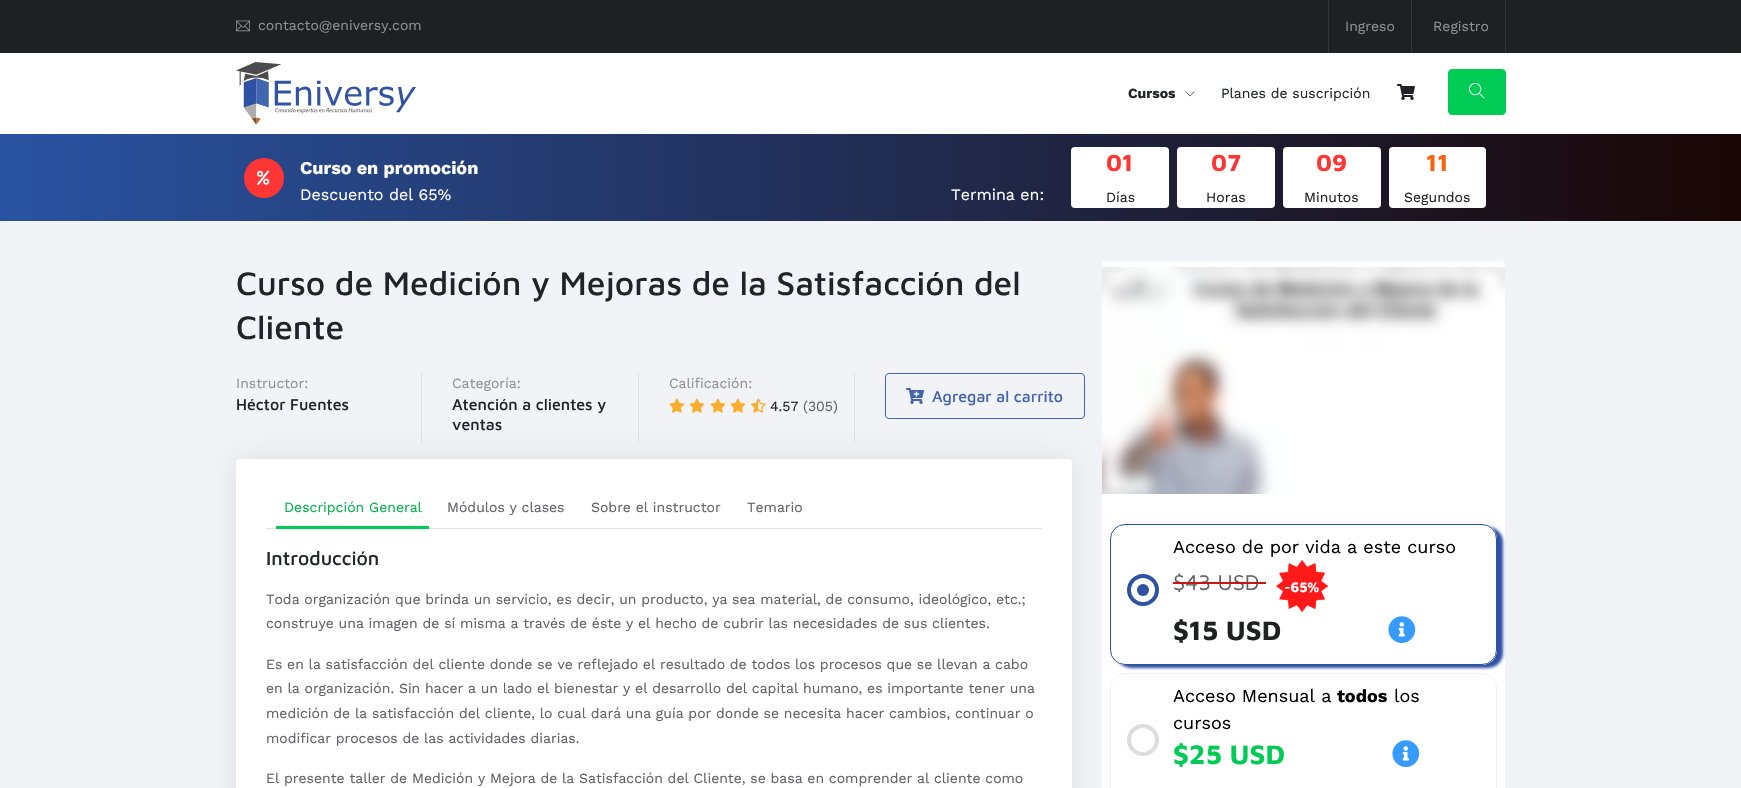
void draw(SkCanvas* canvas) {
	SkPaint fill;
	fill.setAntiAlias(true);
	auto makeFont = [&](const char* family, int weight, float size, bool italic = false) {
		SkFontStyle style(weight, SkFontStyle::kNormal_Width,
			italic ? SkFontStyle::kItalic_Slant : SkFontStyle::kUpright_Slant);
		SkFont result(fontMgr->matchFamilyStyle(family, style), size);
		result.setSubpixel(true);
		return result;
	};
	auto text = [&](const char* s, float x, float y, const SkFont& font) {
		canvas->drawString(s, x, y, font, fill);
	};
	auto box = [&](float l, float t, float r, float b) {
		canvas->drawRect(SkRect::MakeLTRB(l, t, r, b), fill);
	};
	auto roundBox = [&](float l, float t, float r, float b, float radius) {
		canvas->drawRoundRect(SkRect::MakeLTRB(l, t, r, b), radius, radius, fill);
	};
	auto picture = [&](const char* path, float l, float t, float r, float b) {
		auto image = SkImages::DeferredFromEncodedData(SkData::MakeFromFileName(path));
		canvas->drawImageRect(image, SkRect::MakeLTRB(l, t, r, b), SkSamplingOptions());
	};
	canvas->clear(0xFFFFFFFF);
	fill.setColor(0xFF1E2022);
	box(0, 0, 1741, 53);
	picture("image0.png", 236, 20, 250, 32);
	fill.setColor(0xFF353638);
	box(1411, 0, 1412, 53);
	box(1328, 0, 1329, 53);
	box(1505, 0, 1506, 53);
	picture("image1.png", 236, 62, 416, 125);
	picture("image2.png", 1185, 91, 1195, 97);
	picture("image3.png", 1397, 84, 1415, 100);
	fill.setColor(0xFF00CB54);
	canvas->drawRoundRect(SkRect::MakeLTRB(1448.5f, 69.5f, 1505.5f, 114.5f), 3.5f, 3.5f, fill);
	fill.setStyle(SkPaint::kStroke_Style);
	fill.setStrokeWidth(1);
	canvas->drawRoundRect(SkRect::MakeLTRB(1448.5f, 69.5f, 1505.5f, 114.5f), 3.5f, 3.5f, fill);
	picture("image4.png", 1469, 83, 1485, 99);
	fill.setStyle(SkPaint::kFill_Style);
	{
		const SkColor colors[] = {0xFF2953A2, 0xFF1A0604};
		const float stops[] = {0, 1};
		const SkPoint ends[] = {{0, 178}, {1741, 177}};
		fill.setShader(SkGradientShader::MakeLinear(ends, colors, stops, 2, SkTileMode::kClamp));
		fill.setAlpha(255);
	}
	box(0, 134, 1741, 221);
	fill.setShader(nullptr);
	fill.setColor(0xFFFD3635);
	canvas->drawCircle(264, 178, 20, fill);
	picture("image5.png", 257, 170, 270, 185);
	fill.setColor(0xFFFFFFFF);
	roundBox(1071, 147, 1169, 208, 4);
	roundBox(1177, 147, 1275, 208, 4);
	roundBox(1283, 147, 1381, 208, 4);
	roundBox(1389, 147, 1486, 208, 4);
	fill.setColor(0xFFF1F3F7);
	box(0, 221, 1741, 788);
	fill.setColor(0xFFDEE2E6);
	box(421, 373, 422, 443);
	box(638, 373, 639, 443);
	box(854, 373, 855, 443);
	picture("image6.png", 669, 398, 685, 413);
	picture("image6.png", 689, 398, 705, 413);
	picture("image6.png", 710, 398, 726, 413);
	picture("image6.png", 730, 398, 746, 413);
	picture("image7.png", 751, 398, 766, 413);
	fill.setStyle(SkPaint::kStroke_Style);
	fill.setColor(0xFF4564AB);
	canvas->drawRoundRect(SkRect::MakeLTRB(885.5f, 373.5f, 1084.5f, 418.5f), 3.5f, 3.5f, fill);
	picture("image8.png", 906, 388, 924, 404);
	fill.setStyle(SkPaint::kFill_Style);
	fill.setColor(0x14000000);
	fill.setMaskFilter(SkMaskFilter::MakeBlur(kNormal_SkBlurStyle, 15));
	canvas->drawRoundRect(SkRect::MakeLTRB(236, 459, 1072, 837), 4, 4, fill);
	fill.setMaskFilter(nullptr);
	fill.setColor(0xFFFFFFFF);
	roundBox(236, 459, 1072, 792, 4);
	fill.setColor(0xFFDEE2E6);
	box(266, 528, 1042, 529);
	fill.setColor(0xFF00CB54);
	box(276, 526, 429, 529);
	fill.setColor(0xFFFFFFFF);
	roundBox(1102, 261, 1505, 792, 4);
	picture("image9.png", 1102, 267, 1505, 494);
	canvas->save();
	canvas->clipPath(SkPathBuilder(SkPathFillType::kEvenOdd).moveTo(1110, 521).lineTo(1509, 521).lineTo(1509, 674).lineTo(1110, 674).close().moveTo(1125, 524).lineTo(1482, 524).cubicTo(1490.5f, 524, 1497, 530.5f, 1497, 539).lineTo(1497, 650).cubicTo(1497, 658.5f, 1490.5f, 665, 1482, 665).lineTo(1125, 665).cubicTo(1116.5f, 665, 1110, 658.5f, 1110, 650).lineTo(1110, 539).cubicTo(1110, 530.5f, 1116.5f, 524, 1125, 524).close().detach(), true);
	fill.setColor(0xFF2E51A3);
	fill.setMaskFilter(SkMaskFilter::MakeBlur(kNormal_SkBlurStyle, 1.5f));
	canvas->drawRoundRect(SkRect::MakeLTRB(1116, 527, 1503, 668), 15, 15, fill);
	fill.setMaskFilter(nullptr);
	canvas->restore();
	fill.setStyle(SkPaint::kStroke_Style);
	canvas->drawRoundRect(SkRect::MakeLTRB(1110.5f, 524.5f, 1496.5f, 664.5f), 14.5f, 14.5f, fill);
	fill.setStrokeWidth(4);
	canvas->drawCircle(1143, 590, 14, fill);
	fill.setStyle(SkPaint::kFill_Style);
	canvas->drawCircle(1143, 590, 6, fill);
	picture("image10.png", 1276, 560, 1328, 612);
	picture("image11.png", 1388, 616, 1416, 643);
	fill.setStyle(SkPaint::kStroke_Style);
	fill.setStrokeWidth(1);
	fill.setColor(0xFFF1F1F1);
	canvas->drawRoundRect(SkRect::MakeLTRB(1110.5f, 673.5f, 1496.5f, 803.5f), 14.5f, 14.5f, fill);
	fill.setStrokeWidth(4);
	fill.setColor(0xFFDDDDDD);
	canvas->drawCircle(1143, 740, 14, fill);
	picture("image11.png", 1392, 740, 1420, 767);
	auto font1 = makeFont("Work Sans", 400, 14);
	fill.setStyle(SkPaint::kFill_Style);
	fill.setColor(0xFF8F9091);
	text("contacto@eniversy.com", 258, 30, font1);
	text("Ingreso", 1345, 31, font1);
	text("Registro", 1433, 31, font1);
	auto font2 = makeFont("Work Sans", 700, 14);
	fill.setColor(0xFF202428);
	text("Cursos", 1128, 98, font2);
	text("Planes de suscripción", 1221, 98, font1);
	auto font3 = makeFont("Work Sans", 700, 18);
	fill.setColor(0xFFFFFFFF);
	text("Curso en promoción", 300, 174, font3);
	auto font4 = makeFont("Work Sans", 400, 16);
	text("Descuento del 65%", 300, 200, font4);
	text("Termina en:", 951, 200, font4);
	auto font5 = makeFont("Maven Pro", 700, 24);
	fill.setColor(0xFFFD3635);
	text("01", 1106, 171, font5);
	fill.setColor(0xFF1E2022);
	text("Días", 1106, 202, font1);
	fill.setColor(0xFFFD3635);
	text("07", 1211, 171, font5);
	fill.setColor(0xFF1E2022);
	text("Horas", 1206, 202, font1);
	fill.setColor(0xFFFD3635);
	text("09", 1316, 171, font5);
	fill.setColor(0xFF1E2022);
	text("Minutos", 1304, 202, font1);
	fill.setColor(0xFFF8630C);
	text("11", 1426, 171, font5);
	fill.setColor(0xFF1E2022);
	text("Segundos", 1404, 202, font1);
	auto font6 = makeFont("Maven Pro", 500, 33.6f);
	fill.setColor(0xFF202428);
	text("Curso de Medición y Mejoras de la Satisfacción del", 236, 295, font6);
	text("Cliente", 236, 339, font6);
	fill.setColor(0xFF8F9091);
	text("Instructor:", 236, 388, font1);
	auto font7 = makeFont("Maven Pro", 500, 16);
	fill.setColor(0xFF202428);
	text("Héctor Fuentes", 236, 410, font7);
	fill.setColor(0xFF8F9091);
	text("Categoría:", 452, 388, font1);
	fill.setColor(0xFF202428);
	text("Atención a clientes y", 452, 410, font7);
	text("ventas", 452, 430, font7);
	fill.setColor(0xFF8F9091);
	text("Calificación:", 669, 388, font1);
	fill.setColor(0xFF1E2022);
	text("4.57", 770, 411, font1);
	fill.setColor(0xFF606065);
	text("(305)", 803, 411, font1);
	fill.setColor(0xFF4564AB);
	text("Agregar al carrito", 932, 402, font7);
	fill.setColor(0xFF00B249);
	text("Descripción General", 284, 512, font1);
	fill.setColor(0xFF606065);
	text("Módulos y clases", 447, 512, font1);
	text("Sobre el instructor", 591, 512, font1);
	text("Temario", 747, 512, font1);
	auto font8 = makeFont("Maven Pro", 500, 19.5f);
	fill.setColor(0xFF202428);
	text("Introducción", 266, 565, font8);
	fill.setColor(0xFF606065);
	text("Toda organización que brinda un servicio, es decir, un producto, ya sea material, de consumo, ideológico, etc.;", 266, 604, font1);
	text("construye una imagen de sí misma a través de éste y el hecho de cubrir las necesidades de sus clientes.", 266, 628, font1);
	text("Es en la satisfacción del cliente donde se ve reflejado el resultado de todos los procesos que se llevan a cabo", 266, 669, font1);
	text("en la organización. Sin hacer a un lado el bienestar y el desarrollo del capital humano, es importante tener una", 266, 693, font1);
	text("medición de la satisfacción del cliente, lo cual dará una guía por donde se necesita hacer cambios, continuar o", 266, 718, font1);
	text("modificar procesos de las actividades diarias.", 266, 743, font1);
	text("El presente taller de Medición y Mejora de la Satisfacción del Cliente, se basa en comprender al cliente como", 266, 783, font1);
	auto font9 = makeFont("Work Sans", 400, 18);
	fill.setColor(0xFF000000);
	text("Acceso de por vida a este curso", 1173, 553, font9);
	auto font10 = makeFont("Maven Pro", 400, 22);
	fill.setColor(0xFF606065);
	text("$43 USD", 1173, 590, font10);
	fill.setColor(0xFFCD1313);
	box(1173, 582, 1266, 584);
	auto font11 = makeFont("Maven Pro", 700, 14);
	fill.setColor(0xFFFFFFFF);
	text("-65%", 1284, 592, font11);
	auto font12 = makeFont("Maven Pro", 700, 27.5f);
	fill.setColor(0xFF1E2022);
	text("$15 USD", 1173, 640, font12);
	fill.setColor(0xFF000000);
	text("Acceso Mensual a", 1173, 702, font9);
	text("todos", 1337, 702, font3);
	text("los", 1394, 702, font9);
	text("cursos", 1173, 729, font9);
	fill.setColor(0xFF00CB54);
	text("$25 USD", 1173, 764, font12);
}
